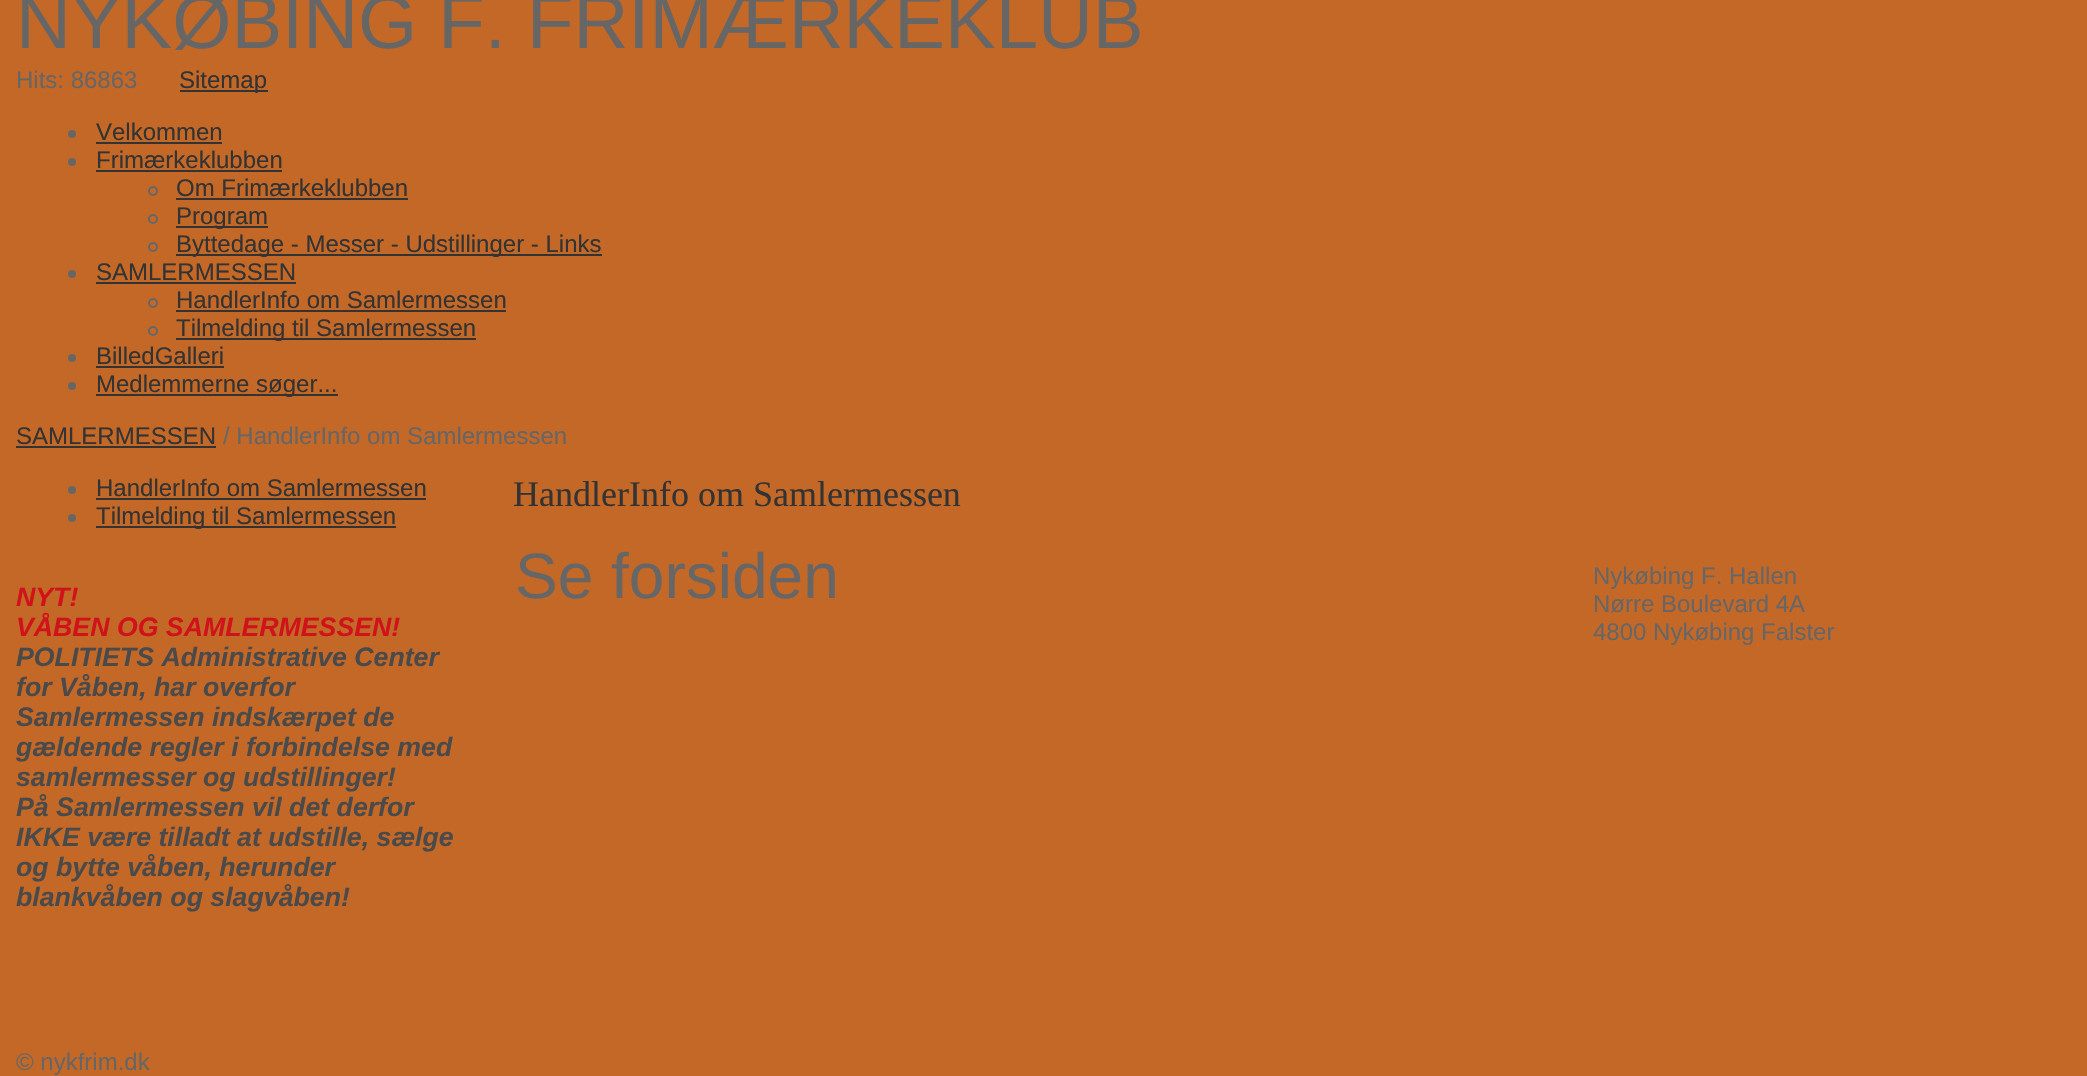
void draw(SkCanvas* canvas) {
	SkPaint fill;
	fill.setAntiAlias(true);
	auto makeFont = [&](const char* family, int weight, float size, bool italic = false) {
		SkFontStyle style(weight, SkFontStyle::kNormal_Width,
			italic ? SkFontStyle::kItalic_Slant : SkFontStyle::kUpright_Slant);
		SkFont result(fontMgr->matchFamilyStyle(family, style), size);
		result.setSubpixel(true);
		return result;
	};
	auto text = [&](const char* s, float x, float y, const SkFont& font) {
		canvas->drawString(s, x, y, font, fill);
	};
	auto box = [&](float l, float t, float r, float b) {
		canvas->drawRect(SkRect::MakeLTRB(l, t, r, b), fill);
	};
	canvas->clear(0xFFC46827);
	fill.setColor(0xFF333333);
	box(180, 90, 268, 92);
	fill.setColor(0xFF666666);
	canvas->drawCircle(72, 134, 4, fill);
	fill.setColor(0xFF333333);
	box(96, 142, 222, 144);
	fill.setColor(0xFF666666);
	canvas->drawCircle(72, 162, 4, fill);
	fill.setColor(0xFF333333);
	box(96, 170, 282, 172);
	fill.setStyle(SkPaint::kStroke_Style);
	fill.setStrokeWidth(2);
	fill.setColor(0xFF666666);
	canvas->drawCircle(153, 191, 4, fill);
	fill.setStyle(SkPaint::kFill_Style);
	fill.setColor(0xFF333333);
	box(176, 198, 408, 200);
	fill.setStyle(SkPaint::kStroke_Style);
	fill.setColor(0xFF666666);
	canvas->drawCircle(153, 219, 4, fill);
	fill.setStyle(SkPaint::kFill_Style);
	fill.setColor(0xFF333333);
	box(176, 226, 268, 228);
	fill.setStyle(SkPaint::kStroke_Style);
	fill.setColor(0xFF666666);
	canvas->drawCircle(153, 247, 4, fill);
	fill.setStyle(SkPaint::kFill_Style);
	fill.setColor(0xFF333333);
	box(176, 254, 602, 256);
	fill.setColor(0xFF666666);
	canvas->drawCircle(72, 274, 4, fill);
	fill.setColor(0xFF333333);
	box(96, 282, 296, 284);
	fill.setStyle(SkPaint::kStroke_Style);
	fill.setColor(0xFF666666);
	canvas->drawCircle(153, 303, 4, fill);
	fill.setStyle(SkPaint::kFill_Style);
	fill.setColor(0xFF333333);
	box(176, 310, 506, 312);
	fill.setStyle(SkPaint::kStroke_Style);
	fill.setColor(0xFF666666);
	canvas->drawCircle(153, 331, 4, fill);
	fill.setStyle(SkPaint::kFill_Style);
	fill.setColor(0xFF333333);
	box(176, 338, 476, 340);
	fill.setColor(0xFF666666);
	canvas->drawCircle(72, 358, 4, fill);
	fill.setColor(0xFF333333);
	box(96, 366, 224, 368);
	fill.setColor(0xFF666666);
	canvas->drawCircle(72, 386, 4, fill);
	fill.setColor(0xFF333333);
	box(96, 394, 338, 396);
	box(16, 446, 216, 448);
	fill.setColor(0xFF666666);
	canvas->drawCircle(72, 490, 4, fill);
	fill.setColor(0xFF333333);
	box(96, 498, 426, 500);
	fill.setColor(0xFF666666);
	canvas->drawCircle(72, 518, 4, fill);
	fill.setColor(0xFF333333);
	box(96, 526, 396, 528);
	auto font1 = makeFont("Liberation Sans", 400, 76);
	fill.setColor(0xFF666666);
	text("NYKØBING F. FRIMÆRKEKLUB", 16, 48, font1);
	auto font2 = makeFont("Liberation Sans", 400, 24);
	text("Hits: 86863", 16, 88, font2);
	fill.setColor(0xFF333333);
	text("Sitemap", 179, 88, font2);
	text("Velkommen", 96, 140, font2);
	text("Frimærkeklubben", 96, 168, font2);
	text("Om Frimærkeklubben", 176, 196, font2);
	text("Program", 176, 224, font2);
	text("Byttedage - Messer - Udstillinger - Links", 176, 252, font2);
	text("SAMLERMESSEN", 96, 280, font2);
	text("HandlerInfo om Samlermessen", 176, 308, font2);
	text("Tilmelding til Samlermessen", 176, 336, font2);
	text("BilledGalleri", 96, 364, font2);
	text("Medlemmerne søger...", 96, 392, font2);
	text("SAMLERMESSEN", 16, 444, font2);
	fill.setColor(0xFF666666);
	text("/ HandlerInfo om Samlermessen", 223, 444, font2);
	fill.setColor(0xFF333333);
	text("HandlerInfo om Samlermessen", 96, 496, font2);
	text("Tilmelding til Samlermessen", 96, 524, font2);
	auto font3 = makeFont("Liberation Sans", 700, 26.7f, true);
	fill.setColor(0xFFD0131A);
	text("NYT!", 16, 606, font3);
	text("VÅBEN OG SAMLERMESSEN!", 16, 636, font3);
	fill.setColor(0xFF4A4A4A);
	text("POLITIETS Administrative Center", 16, 666, font3);
	text("for Våben, har overfor", 16, 696, font3);
	text("Samlermessen indskærpet de", 16, 726, font3);
	text("gældende regler i forbindelse med", 16, 756, font3);
	text("samlermesser og udstillinger!", 16, 786, font3);
	text("På Samlermessen vil det derfor", 16, 816, font3);
	text("IKKE være tilladt at udstille, sælge", 16, 846, font3);
	text("og bytte våben, herunder", 16, 876, font3);
	text("blankvåben og slagvåben!", 16, 906, font3);
	auto font4 = makeFont("Liberation Serif", 400, 36);
	fill.setColor(0xFF333333);
	text("HandlerInfo om Samlermessen", 513, 506, font4);
	auto font5 = makeFont("Liberation Sans", 400, 64);
	fill.setColor(0xFF666666);
	text("Se forsiden", 515, 598, font5);
	text("Nykøbing F. Hallen", 1593, 584, font2);
	text("Nørre Boulevard 4A", 1593, 612, font2);
	text("4800 Nykøbing Falster", 1593, 640, font2);
	text("© nykfrim.dk", 16, 1070, font2);
}
